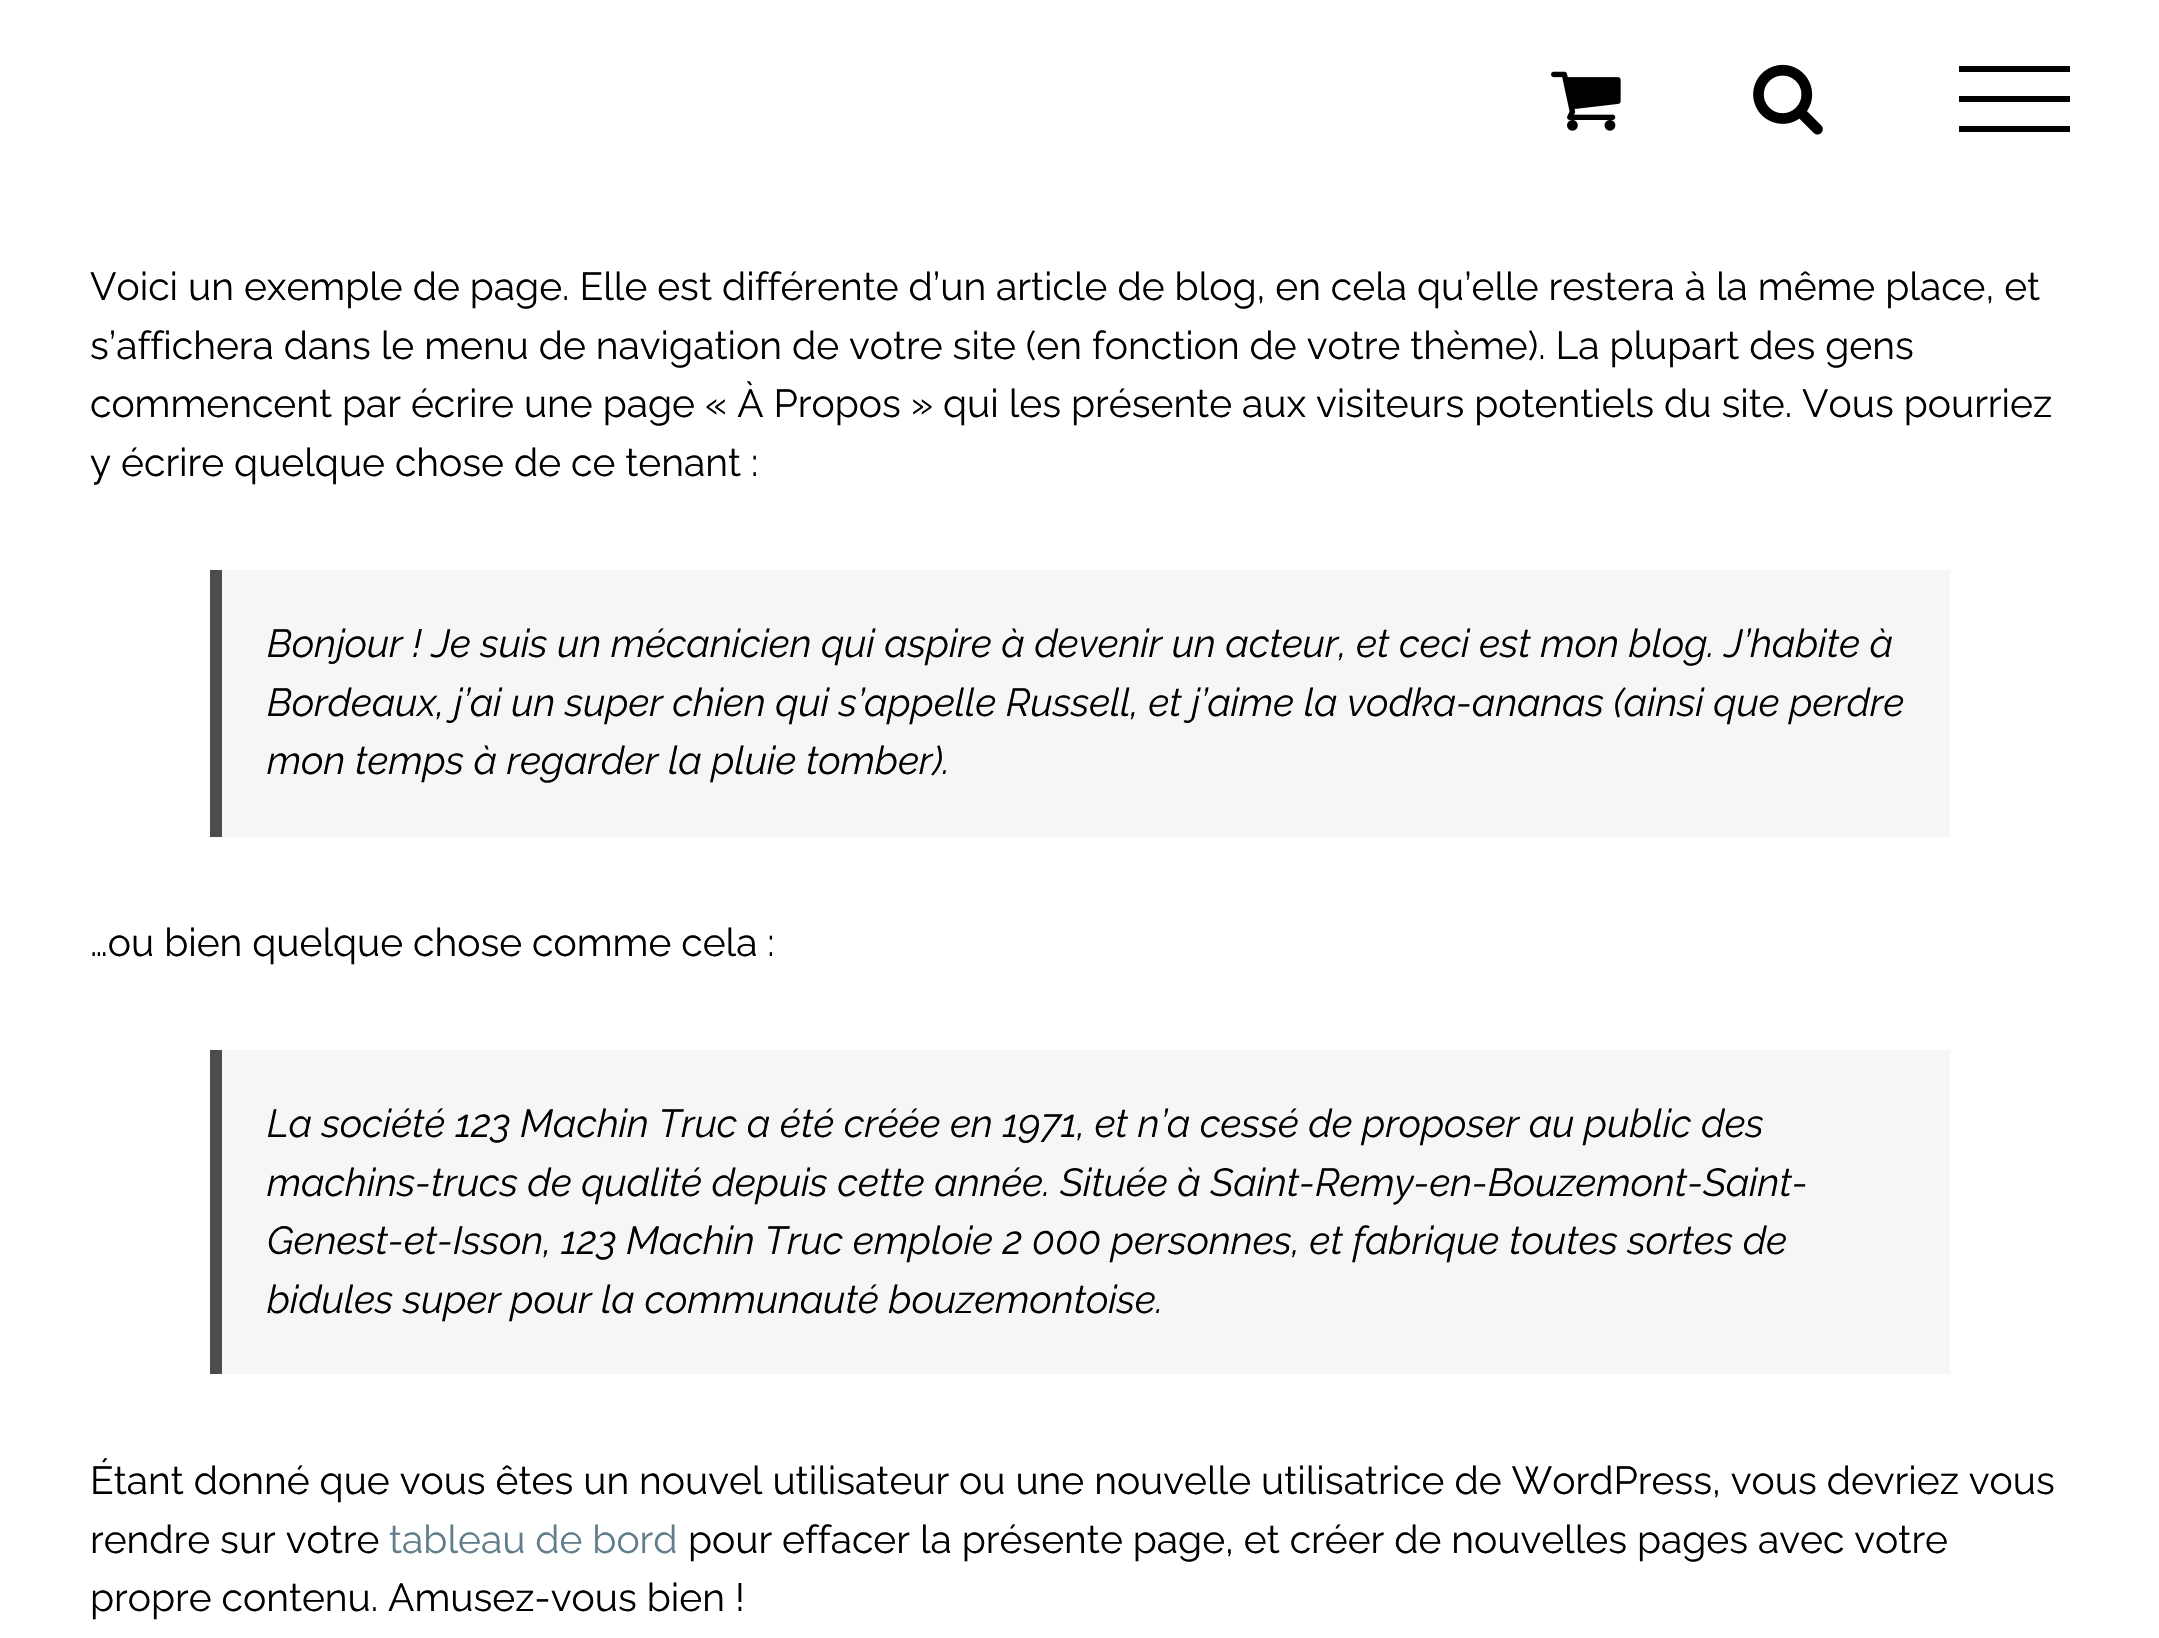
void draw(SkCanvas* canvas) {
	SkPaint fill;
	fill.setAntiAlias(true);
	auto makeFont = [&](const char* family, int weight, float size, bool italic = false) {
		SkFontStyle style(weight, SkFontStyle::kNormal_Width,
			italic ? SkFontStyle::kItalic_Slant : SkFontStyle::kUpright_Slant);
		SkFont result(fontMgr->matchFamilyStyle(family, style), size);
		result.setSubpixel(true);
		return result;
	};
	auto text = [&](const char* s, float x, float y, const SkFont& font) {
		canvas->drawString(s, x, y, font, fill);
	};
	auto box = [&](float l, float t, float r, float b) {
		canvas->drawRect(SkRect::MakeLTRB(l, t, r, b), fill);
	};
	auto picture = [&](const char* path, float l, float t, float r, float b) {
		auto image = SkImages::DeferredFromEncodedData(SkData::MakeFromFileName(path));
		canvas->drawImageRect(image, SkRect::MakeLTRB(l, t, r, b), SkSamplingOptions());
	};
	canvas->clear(0xFFFFFFFF);
	picture("image0.png", 1551, 71, 1621, 131);
	picture("image1.png", 1753, 64, 1823, 135);
	fill.setColor(0xFF000000);
	box(1959, 66, 2070, 72);
	box(1959, 96, 2070, 102);
	box(1959, 126, 2070, 132);
	fill.setColor(0xFFF6F6F6);
	box(222, 570, 1950, 837);
	fill.setColor(0xFF4C4C4C);
	box(210, 570, 222, 837);
	fill.setColor(0xFFF6F6F6);
	box(222, 1050, 1950, 1374);
	fill.setColor(0xFF4C4C4C);
	box(210, 1050, 222, 1374);
	auto font1 = makeFont("Raleway", 400, 39);
	fill.setColor(0xFF000000);
	text("Voici un exemple de page. Elle est différente d’un article de blog, en cela qu’elle restera à la même place, et", 90, 300, font1);
	text("s’affichera dans le menu de navigation de votre site (en fonction de votre thème). La plupart des gens", 90, 359, font1);
	text("commencent par écrire une page « À Propos » qui les présente aux visiteurs potentiels du site. Vous pourriez", 90, 417, font1);
	text("y écrire quelque chose de ce tenant :", 90, 476, font1);
	auto font2 = makeFont("Raleway", 400, 39, true);
	text("Bonjour ! Je suis un mécanicien qui aspire à devenir un acteur, et ceci est mon blog. J’habite à", 267, 657, font2);
	text("Bordeaux, j’ai un super chien qui s’appelle Russell, et j’aime la vodka-ananas (ainsi que perdre", 267, 716, font2);
	text("mon temps à regarder la pluie tomber).", 267, 774, font2);
	text("…ou bien quelque chose comme cela :", 90, 956, font1);
	text("La société 123 Machin Truc a été créée en 1971, et n’a cessé de proposer au public des", 267, 1137, font2);
	text("machins-trucs de qualité depuis cette année. Située à Saint-Remy-en-Bouzemont-Saint-", 267, 1196, font2);
	text("Genest-et-Isson, 123 Machin Truc emploie 2 000 personnes, et fabrique toutes sortes de", 267, 1254, font2);
	text("bidules super pour la communauté bouzemontoise.", 267, 1313, font2);
	text("Étant donné que vous êtes un nouvel utilisateur ou une nouvelle utilisatrice de WordPress, vous devriez vous", 90, 1494, font1);
	text("rendre sur votre", 90, 1553, font1);
	fill.setColor(0xFF607D8B);
	text("tableau de bord", 389, 1553, font1);
	fill.setColor(0xFF000000);
	text("pour effacer la présente page, et créer de nouvelles pages avec votre", 688, 1553, font1);
	text("propre contenu. Amusez-vous bien !", 90, 1611, font1);
}
